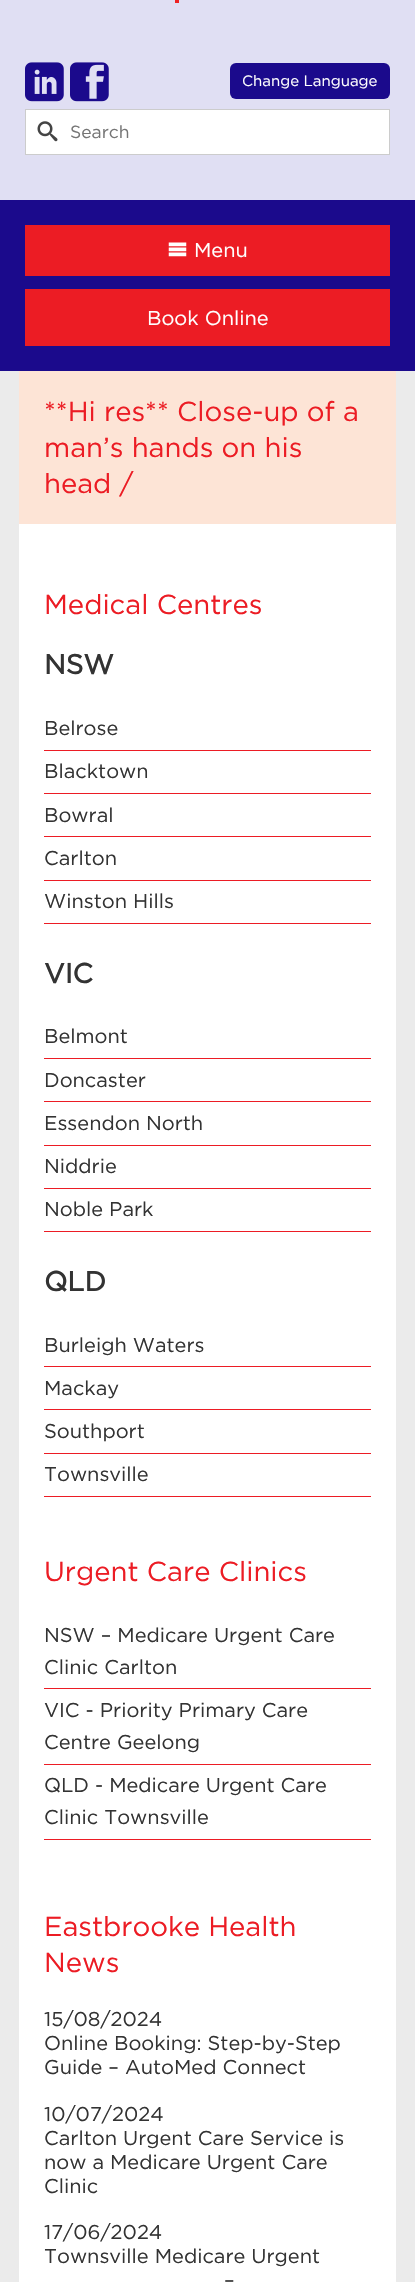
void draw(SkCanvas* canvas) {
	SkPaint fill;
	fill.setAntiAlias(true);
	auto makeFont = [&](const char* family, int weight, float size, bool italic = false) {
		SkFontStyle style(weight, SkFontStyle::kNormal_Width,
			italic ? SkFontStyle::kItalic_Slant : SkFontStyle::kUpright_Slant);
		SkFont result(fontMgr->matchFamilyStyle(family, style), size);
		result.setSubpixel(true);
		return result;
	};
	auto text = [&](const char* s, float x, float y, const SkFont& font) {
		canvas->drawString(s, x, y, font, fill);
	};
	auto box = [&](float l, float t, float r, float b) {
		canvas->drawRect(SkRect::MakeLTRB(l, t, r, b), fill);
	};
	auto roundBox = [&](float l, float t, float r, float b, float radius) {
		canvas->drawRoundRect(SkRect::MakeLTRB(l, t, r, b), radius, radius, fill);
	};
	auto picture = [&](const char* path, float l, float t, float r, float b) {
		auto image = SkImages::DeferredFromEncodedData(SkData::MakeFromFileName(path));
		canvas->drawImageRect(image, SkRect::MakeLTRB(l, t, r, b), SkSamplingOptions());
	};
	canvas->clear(0xFFEBEBEB);
	fill.setColor(0xFFE0DFF3);
	box(0, 0, 415, 200);
	fill.setColor(0xFFEE2222);
	box(175, 0, 179, 3);
	fill.setColor(0xFF1B0A8C);
	roundBox(230, 63, 390, 99, 6);
	picture("image0.png", 25, 62, 64, 102);
	picture("image1.png", 70, 62, 109, 102);
	fill.setColor(0xFFFFFFFF);
	canvas->drawRect(SkRect::MakeLTRB(25.5f, 109.5f, 389.5f, 154.5f), fill);
	fill.setStyle(SkPaint::kStroke_Style);
	fill.setStrokeWidth(1);
	fill.setColor(0xFFCCCCCC);
	canvas->drawRect(SkRect::MakeLTRB(25.5f, 109.5f, 389.5f, 154.5f), fill);
	picture("image2.png", 37, 121, 58, 142);
	fill.setStyle(SkPaint::kFill_Style);
	fill.setColor(0xFF1B0A8C);
	box(0, 200, 415, 371);
	fill.setColor(0xFFEC1C24);
	box(25, 225, 390, 276);
	picture("image3.png", 168, 242, 187, 257);
	box(25, 289, 390, 346);
	fill.setColor(0xFFFDE4D6);
	box(19, 371, 396, 524);
	fill.setColor(0xFFFFFFFF);
	box(19, 524, 396, 2282);
	fill.setColor(0xFFEC1C24);
	box(44, 750, 371, 751);
	box(44, 793, 371, 794);
	box(44, 836, 371, 837);
	box(44, 880, 371, 881);
	box(44, 923, 371, 924);
	box(44, 1058, 371, 1059);
	box(44, 1101, 371, 1102);
	box(44, 1145, 371, 1146);
	box(44, 1188, 371, 1189);
	box(44, 1231, 371, 1232);
	box(44, 1366, 371, 1367);
	box(44, 1409, 371, 1410);
	box(44, 1453, 371, 1454);
	box(44, 1496, 371, 1497);
	box(44, 1688, 371, 1689);
	box(44, 1764, 371, 1765);
	box(44, 1839, 371, 1840);
	auto font1 = makeFont("Gotham", 400, 15);
	fill.setColor(0xFFFFFFFF);
	text("Change Language", 242, 86, font1);
	auto font2 = makeFont("Gotham", 400, 17.5f);
	fill.setColor(0xFF757575);
	text("Search", 70, 138, font2);
	auto font3 = makeFont("Gotham", 400, 20);
	fill.setColor(0xFFFFFFFF);
	text("Menu", 194, 257, font3);
	text("Book Online", 147, 325, font3);
	auto font4 = makeFont("Gotham", 400, 27.5f);
	fill.setColor(0xFFEC1C24);
	text("**Hi res** Close-up of a", 44, 421, font4);
	text("man’s hands on his", 44, 457, font4);
	text("head /", 44, 493, font4);
	text("Medical Centres", 44, 614, font4);
	auto font5 = makeFont("Gotham", 700, 27.5f);
	fill.setColor(0xFF333333);
	text("NSW", 44, 674, font5);
	text("Belrose", 44, 735, font3);
	text("Blacktown", 44, 778, font3);
	text("Bowral", 44, 822, font3);
	text("Carlton", 44, 865, font3);
	text("Winston Hills", 44, 908, font3);
	text("VIC", 44, 983, font5);
	text("Belmont", 44, 1043, font3);
	text("Doncaster", 44, 1087, font3);
	text("Essendon North", 44, 1130, font3);
	text("Niddrie", 44, 1173, font3);
	text("Noble Park", 44, 1216, font3);
	text("QLD", 44, 1291, font5);
	text("Burleigh Waters", 44, 1352, font3);
	text("Mackay", 44, 1395, font3);
	text("Southport", 44, 1438, font3);
	text("Townsville", 44, 1481, font3);
	fill.setColor(0xFFEC1C24);
	text("Urgent Care Clinics", 44, 1581, font4);
	fill.setColor(0xFF333333);
	text("NSW – Medicare Urgent Care", 44, 1642, font3);
	text("Clinic Carlton", 44, 1674, font3);
	text("VIC - Priority Primary Care", 44, 1717, font3);
	text("Centre Geelong", 44, 1749, font3);
	text("QLD - Medicare Urgent Care", 44, 1792, font3);
	text("Clinic Townsville", 44, 1824, font3);
	fill.setColor(0xFFEC1C24);
	text("Eastbrooke Health", 44, 1936, font4);
	text("News", 44, 1972, font4);
	fill.setColor(0xFF333333);
	text("15/08/2024", 44, 2026, font3);
	text("Online Booking: Step-by-Step", 44, 2050, font3);
	text("Guide – AutoMed Connect", 44, 2074, font3);
	text("10/07/2024", 44, 2121, font3);
	text("Carlton Urgent Care Service is", 44, 2145, font3);
	text("now a Medicare Urgent Care", 44, 2169, font3);
	text("Clinic", 44, 2193, font3);
	text("17/06/2024", 44, 2239, font3);
	text("Townsville Medicare Urgent", 44, 2263, font3);
	text("–", 224, 2287, font3);
}
